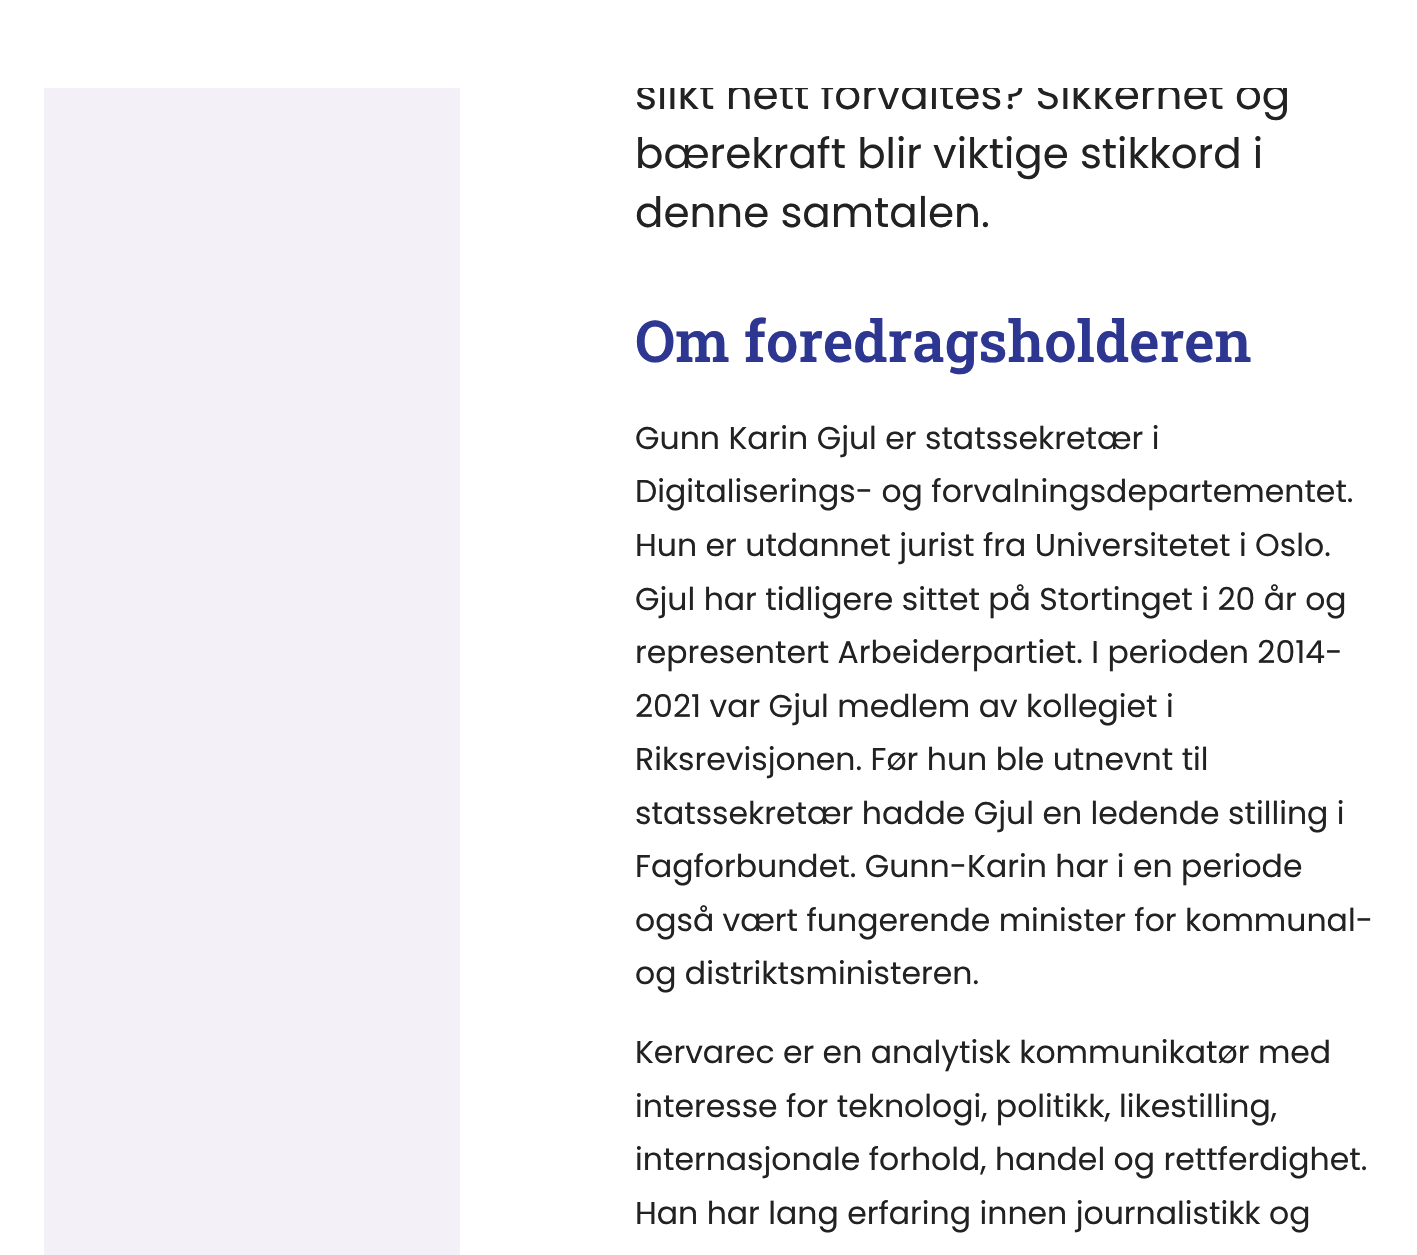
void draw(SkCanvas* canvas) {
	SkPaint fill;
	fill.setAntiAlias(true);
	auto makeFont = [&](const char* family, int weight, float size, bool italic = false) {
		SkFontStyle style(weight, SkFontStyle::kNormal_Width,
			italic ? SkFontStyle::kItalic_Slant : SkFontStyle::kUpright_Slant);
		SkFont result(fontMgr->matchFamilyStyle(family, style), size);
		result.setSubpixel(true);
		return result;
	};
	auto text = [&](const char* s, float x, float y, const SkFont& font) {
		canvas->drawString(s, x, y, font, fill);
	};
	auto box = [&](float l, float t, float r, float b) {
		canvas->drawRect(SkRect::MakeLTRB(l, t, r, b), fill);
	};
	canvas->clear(0xFFFFFFFF);
	fill.setColor(0xFFF3F1F7);
	box(44, 88, 460, 1255);
	auto font1 = makeFont("Poppins", 400, 42);
	fill.setColor(0xFF222222);
	text("slikt nett forvaltes? Sikkerhet og", 635, 109, font1);
	text("bærekraft blir viktige stikkord i", 635, 168, font1);
	text("denne samtalen.", 635, 227, font1);
	auto font2 = makeFont("Roboto Slab", 600, 57.75f);
	fill.setColor(0xFF2D3690);
	text("Om foredragsholderen", 635, 362, font2);
	auto font3 = makeFont("Poppins", 400, 31.5f);
	fill.setColor(0xFF222222);
	text("Gunn Karin Gjul er statssekretær i", 635, 449, font3);
	text("Digitaliserings- og forvalningsdepartementet.", 635, 502, font3);
	text("Hun er utdannet jurist fra Universitetet i Oslo.", 635, 556, font3);
	text("Gjul har tidligere sittet på Stortinget i 20 år og", 635, 610, font3);
	text("representert Arbeiderpartiet. I perioden 2014-", 635, 663, font3);
	text("2021 var Gjul medlem av kollegiet i", 635, 717, font3);
	text("Riksrevisjonen. Før hun ble utnevnt til", 635, 770, font3);
	text("statssekretær hadde Gjul en ledende stilling i", 635, 824, font3);
	text("Fagforbundet. Gunn-Karin har i en periode", 635, 877, font3);
	text("også vært fungerende minister for kommunal-", 635, 931, font3);
	text("og distriktsministeren.", 635, 984, font3);
	text("Kervarec er en analytisk kommunikatør med", 635, 1063, font3);
	text("interesse for teknologi, politikk, likestilling,", 635, 1117, font3);
	text("internasjonale forhold, handel og rettferdighet.", 635, 1170, font3);
	text("Han har lang erfaring innen journalistikk og", 635, 1224, font3);
	fill.setColor(0xFFFFFFFF);
	box(639, 76, 1287, 88);
}
